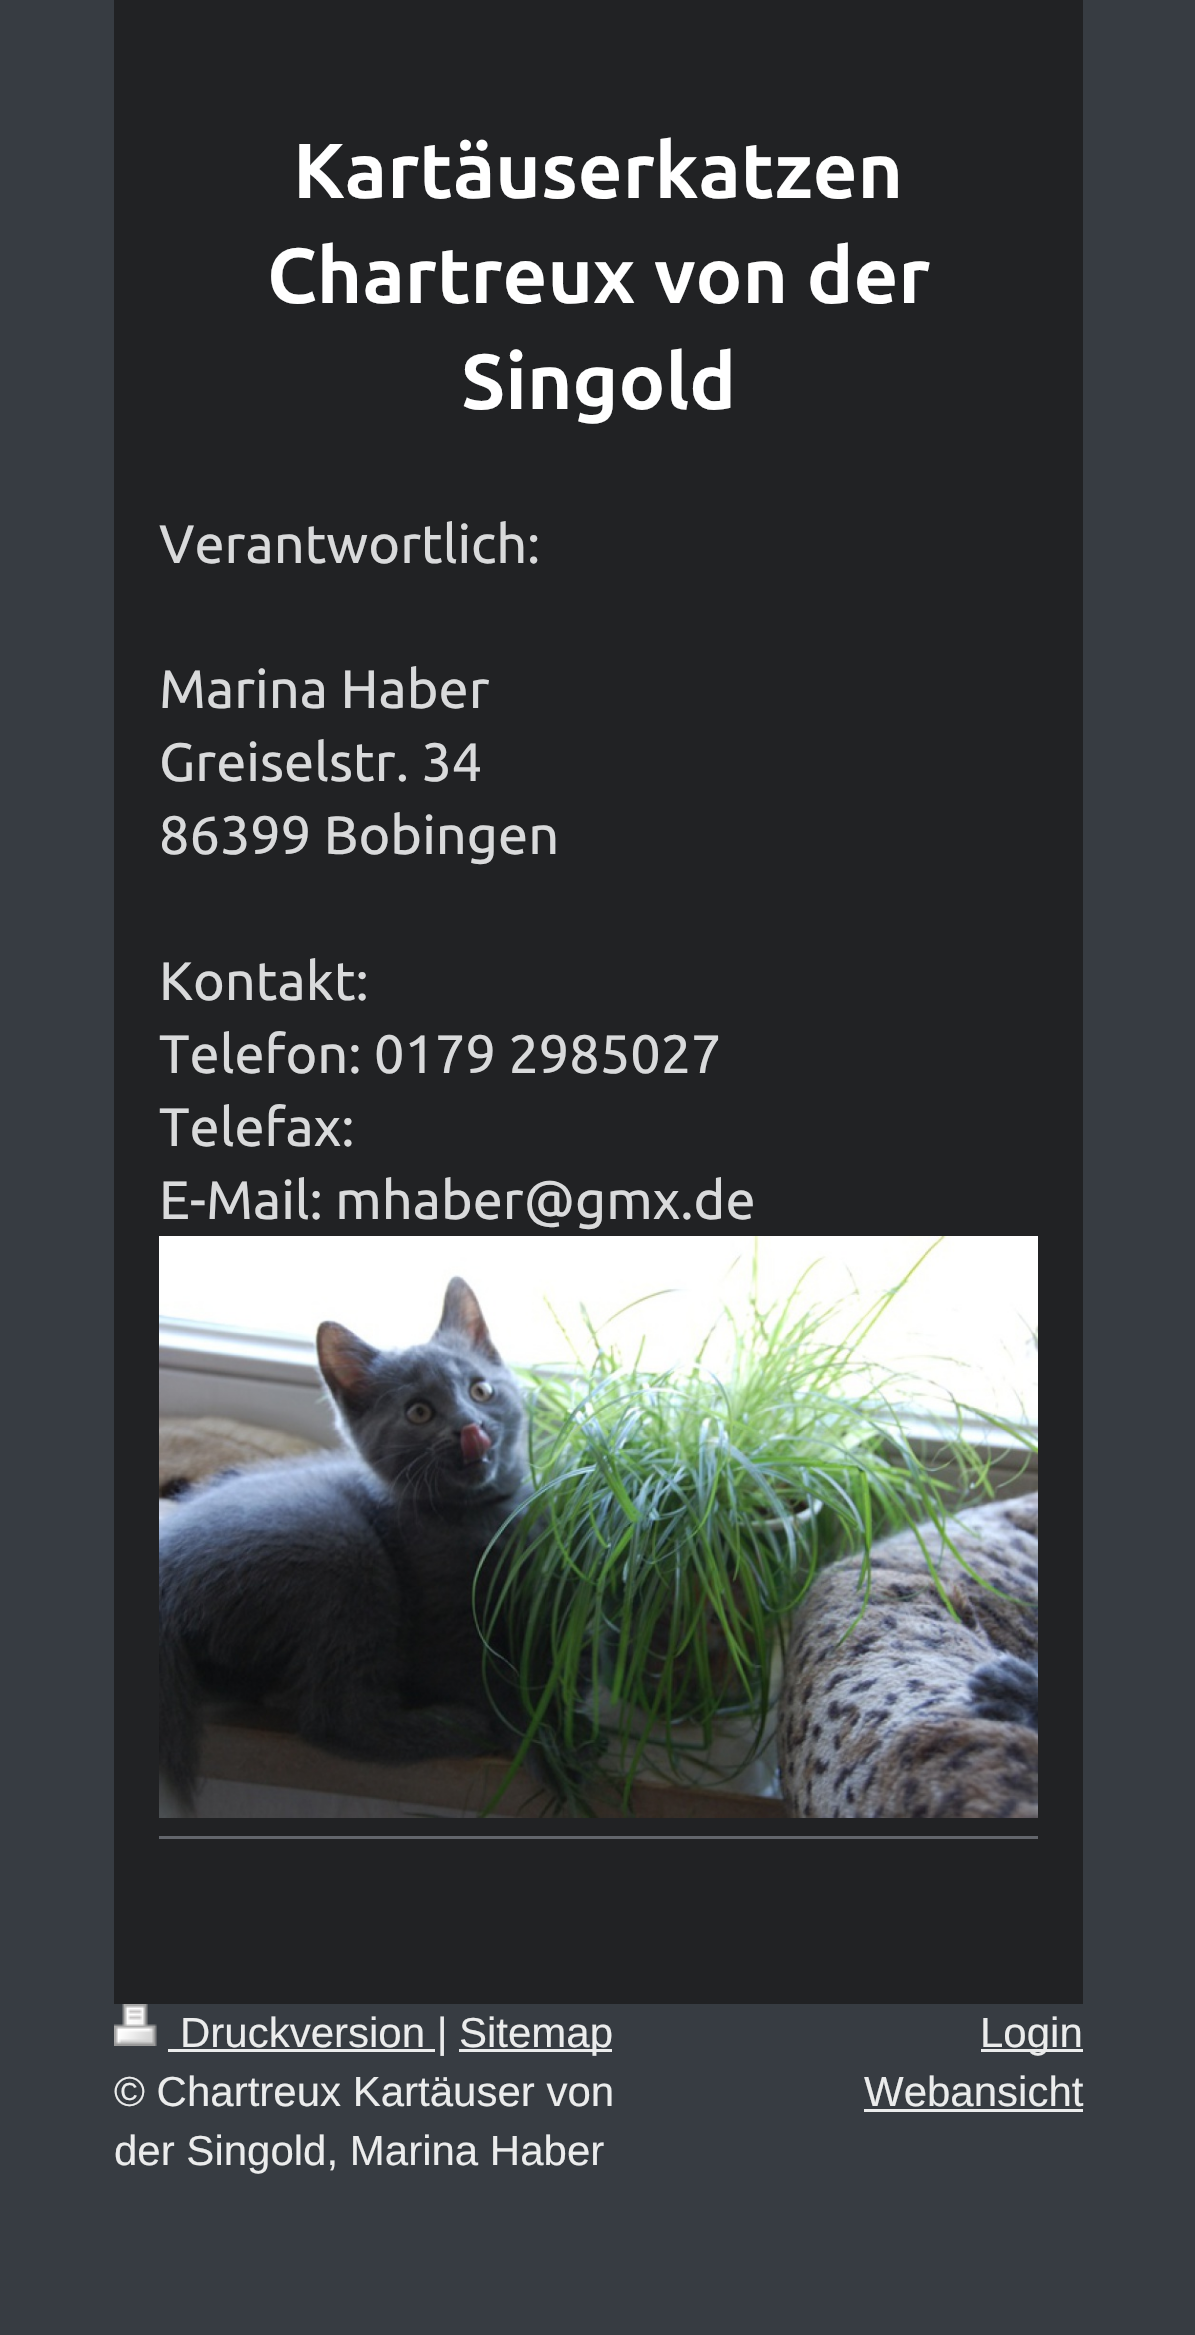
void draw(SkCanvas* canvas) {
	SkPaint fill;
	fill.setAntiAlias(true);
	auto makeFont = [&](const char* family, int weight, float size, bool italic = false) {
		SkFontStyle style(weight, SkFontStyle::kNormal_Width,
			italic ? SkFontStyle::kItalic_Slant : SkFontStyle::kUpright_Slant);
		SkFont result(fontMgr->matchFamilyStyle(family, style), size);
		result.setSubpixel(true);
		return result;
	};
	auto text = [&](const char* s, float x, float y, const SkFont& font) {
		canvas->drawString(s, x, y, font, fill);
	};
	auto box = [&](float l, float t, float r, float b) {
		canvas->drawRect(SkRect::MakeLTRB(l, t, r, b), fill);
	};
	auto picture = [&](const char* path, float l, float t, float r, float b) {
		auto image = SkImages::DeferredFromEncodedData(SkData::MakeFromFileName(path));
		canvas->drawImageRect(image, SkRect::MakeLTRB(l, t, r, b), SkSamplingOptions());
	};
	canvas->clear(0xFF373C42);
	fill.setColor(0xFF212224);
	box(114, 0, 1083, 2004);
	picture("image0.png", 159, 1236, 1038, 1818);
	fill.setColor(0xFF63666C);
	box(159, 1836, 1038, 1839);
	picture("image1.png", 114, 2004, 157, 2046);
	fill.setColor(0xFFEBECEC);
	box(168, 2049, 435, 2052);
	box(459, 2049, 612, 2052);
	box(981, 2049, 1083, 2052);
	box(864, 2109, 1083, 2112);
	auto font1 = makeFont("Ubuntu", 700, 78);
	fill.setColor(0xFFFFFFFF);
	text("Kartäuserkatzen", 293, 198, font1);
	text("Chartreux von der", 267, 303, font1);
	text("Singold", 461, 409, font1);
	auto font2 = makeFont("Ubuntu", 400, 54);
	fill.setColor(0xFFD9DADB);
	text("Verantwortlich:", 159, 563, font2);
	text("Marina Haber", 159, 708, font2);
	text("Greiselstr. 34", 159, 781, font2);
	text("86399 Bobingen", 159, 854, font2);
	text("Kontakt:", 159, 1000, font2);
	text("Telefon: 0179 2985027", 159, 1073, font2);
	text("Telefax:", 159, 1146, font2);
	text("E-Mail: mhaber@gmx.de", 159, 1219, font2);
	auto font3 = makeFont("Liberation Sans", 400, 42);
	fill.setColor(0xFFEBECEC);
	text("Druckversion |", 180, 2047, font3);
	text("Sitemap", 459, 2047, font3);
	text("© Chartreux Kartäuser von", 114, 2106, font3);
	text("der Singold, Marina Haber", 114, 2165, font3);
	text("Login", 980, 2047, font3);
	text("Webansicht", 864, 2106, font3);
}
